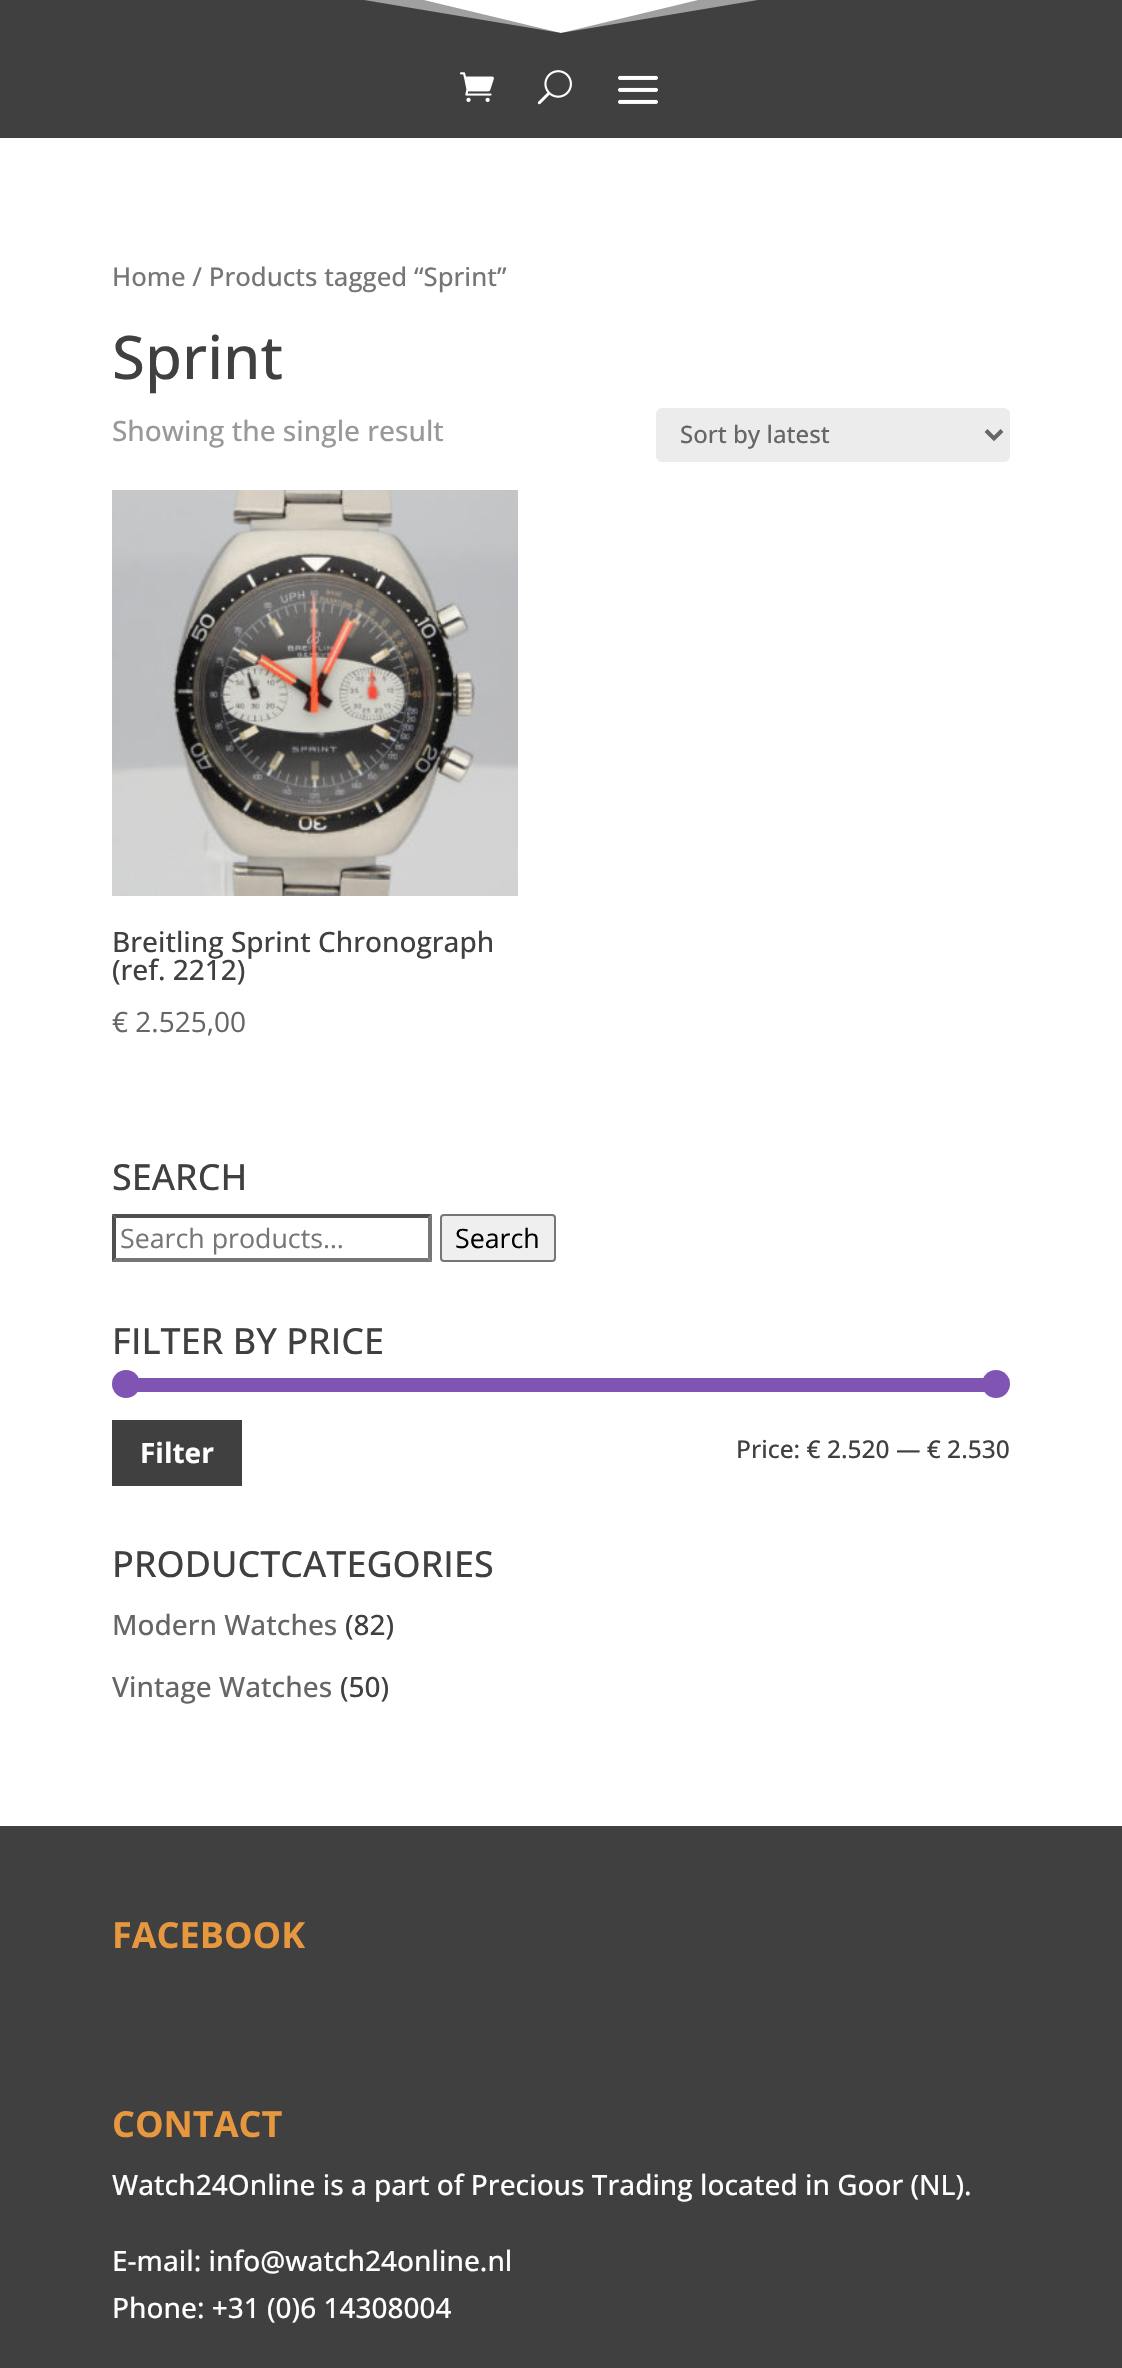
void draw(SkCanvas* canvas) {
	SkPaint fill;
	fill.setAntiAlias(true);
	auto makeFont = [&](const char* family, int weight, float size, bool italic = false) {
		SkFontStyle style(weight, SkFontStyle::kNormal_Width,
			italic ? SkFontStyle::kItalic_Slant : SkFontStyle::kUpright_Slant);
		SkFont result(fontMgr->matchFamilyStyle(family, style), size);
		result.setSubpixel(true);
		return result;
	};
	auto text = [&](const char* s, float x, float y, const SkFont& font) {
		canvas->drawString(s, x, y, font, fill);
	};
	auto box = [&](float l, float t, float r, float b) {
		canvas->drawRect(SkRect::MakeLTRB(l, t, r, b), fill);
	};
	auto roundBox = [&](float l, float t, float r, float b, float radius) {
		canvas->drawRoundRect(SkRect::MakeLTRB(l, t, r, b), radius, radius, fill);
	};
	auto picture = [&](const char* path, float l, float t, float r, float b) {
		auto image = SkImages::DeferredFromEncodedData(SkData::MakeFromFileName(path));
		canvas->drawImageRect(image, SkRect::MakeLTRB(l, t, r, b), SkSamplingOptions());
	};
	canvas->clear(0xFFFFFFFF);
	fill.setColor(0xFFA0A0A0);
	canvas->drawPath(SkPathBuilder().moveTo(561, 33).lineTo(0, -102).lineTo(0, 34).lineTo(1122, 34).lineTo(1122, -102).close().detach(), fill);
	fill.setColor(0xFF404041);
	canvas->drawPath(SkPathBuilder().moveTo(561, 33).lineTo(0, -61).lineTo(0, 34).lineTo(1122, 34).lineTo(1122, -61).close().detach(), fill);
	box(0, 34, 1122, 138);
	picture("image0.png", 459, 72, 494, 102);
	picture("image1.png", 537, 70, 572, 105);
	picture("image2.png", 618, 75, 658, 104);
	fill.setColor(0xFFECECEC);
	roundBox(656, 408, 1010, 462, 6);
	fill.setStyle(SkPaint::kStroke_Style);
	fill.setStrokeWidth(4);
	fill.setColor(0xFF666666);
	canvas->drawPath(SkPathBuilder().moveTo(986, 430.5f).lineTo(994, 438.5f).lineTo(1002, 430.5f).detach(), fill);
	picture("image3.png", 112, 490, 518, 896);
	fill.setStyle(SkPaint::kFill_Style);
	fill.setColor(0xFF4F4F4F);
	canvas->drawPath(SkPathBuilder().moveTo(112, 1214).lineTo(432, 1214).lineTo(428, 1218).lineTo(116, 1218).close().detach(), fill);
	fill.setColor(0xFF767676);
	canvas->drawPath(SkPathBuilder().moveTo(432, 1214).lineTo(432, 1262).lineTo(428, 1258).lineTo(428, 1218).close().detach(), fill);
	canvas->drawPath(SkPathBuilder().moveTo(432, 1262).lineTo(112, 1262).lineTo(116, 1258).lineTo(428, 1258).close().detach(), fill);
	fill.setColor(0xFF4F4F4F);
	canvas->drawPath(SkPathBuilder().moveTo(112, 1262).lineTo(112, 1214).lineTo(116, 1218).lineTo(116, 1258).close().detach(), fill);
	fill.setColor(0xFFEFEFEF);
	canvas->drawRoundRect(SkRect::MakeLTRB(441, 1215, 555, 1261), 3, 3, fill);
	fill.setStyle(SkPaint::kStroke_Style);
	fill.setStrokeWidth(2);
	fill.setColor(0xFF767676);
	canvas->drawRoundRect(SkRect::MakeLTRB(441, 1215, 555, 1261), 3, 3, fill);
	fill.setStyle(SkPaint::kFill_Style);
	fill.setColor(0xFF7F54B3);
	box(137, 1378, 985, 1392);
	canvas->drawCircle(126, 1384, 14, fill);
	canvas->drawCircle(996, 1384, 14, fill);
	fill.setColor(0xFF404041);
	box(112, 1420, 242, 1486);
	box(0, 1826, 1122, 2368);
	auto font1 = makeFont("Open Sans", 500, 25.75f);
	fill.setColor(0xFF767676);
	text("Home / Products tagged “Sprint”", 112, 286, font1);
	auto font2 = makeFont("Open Sans", 500, 60);
	fill.setColor(0xFF404041);
	text("Sprint", 112, 379, font2);
	auto font3 = makeFont("Open Sans", 500, 28);
	fill.setColor(0xFF999999);
	text("Showing the single result", 112, 441, font3);
	auto font4 = makeFont("Open Sans", 500, 24);
	fill.setColor(0xFF666666);
	text("Sort by latest", 680, 443, font4);
	fill.setColor(0xFF404041);
	text("Breitling Sprint Chronograph", 112, 952, font3);
	text("(ref. 2212)", 112, 980, font3);
	auto font5 = makeFont("Open Sans", 400, 28);
	fill.setColor(0xFF666666);
	text("€ 2.525,00", 112, 1032, font5);
	auto font6 = makeFont("Open Sans", 500, 36);
	fill.setColor(0xFF404041);
	text("SEARCH", 112, 1190, font6);
	auto font7 = makeFont("Open Sans", 400, 26.75f);
	fill.setColor(0xFF767676);
	text("Search products…", 120, 1248, font7);
	fill.setColor(0xFF000000);
	text("Search", 455, 1248, font7);
	fill.setColor(0xFF404041);
	text("FILTER BY PRICE", 112, 1354, font6);
	auto font8 = makeFont("Open Sans", 700, 28);
	fill.setColor(0xFFFFFFFF);
	text("Filter", 140, 1463, font8);
	auto font9 = makeFont("Open Sans", 500, 24.5f);
	fill.setColor(0xFF404041);
	text("Price: € 2.520 — € 2.530", 736, 1458, font9);
	text("PRODUCTCATEGORIES", 112, 1577, font6);
	fill.setColor(0xFF666666);
	text("Modern Watches", 112, 1635, font3);
	fill.setColor(0xFF404041);
	text("(82)", 345, 1635, font3);
	fill.setColor(0xFF666666);
	text("Vintage Watches", 112, 1697, font3);
	fill.setColor(0xFF404041);
	text("(50)", 340, 1697, font3);
	auto font10 = makeFont("Open Sans", 700, 36);
	fill.setColor(0xFFE7983F);
	text("FACEBOOK", 112, 1948, font10);
	text("CONTACT", 112, 2137, font10);
	fill.setColor(0xFFFFFFFF);
	text("Watch24Online is a part of Precious Trading located in Goor (NL).", 112, 2195, font3);
	text("E-mail: info@watch24online.nl", 112, 2271, font3);
	text("Phone: +31 (0)6 14308004", 112, 2318, font3);
}
